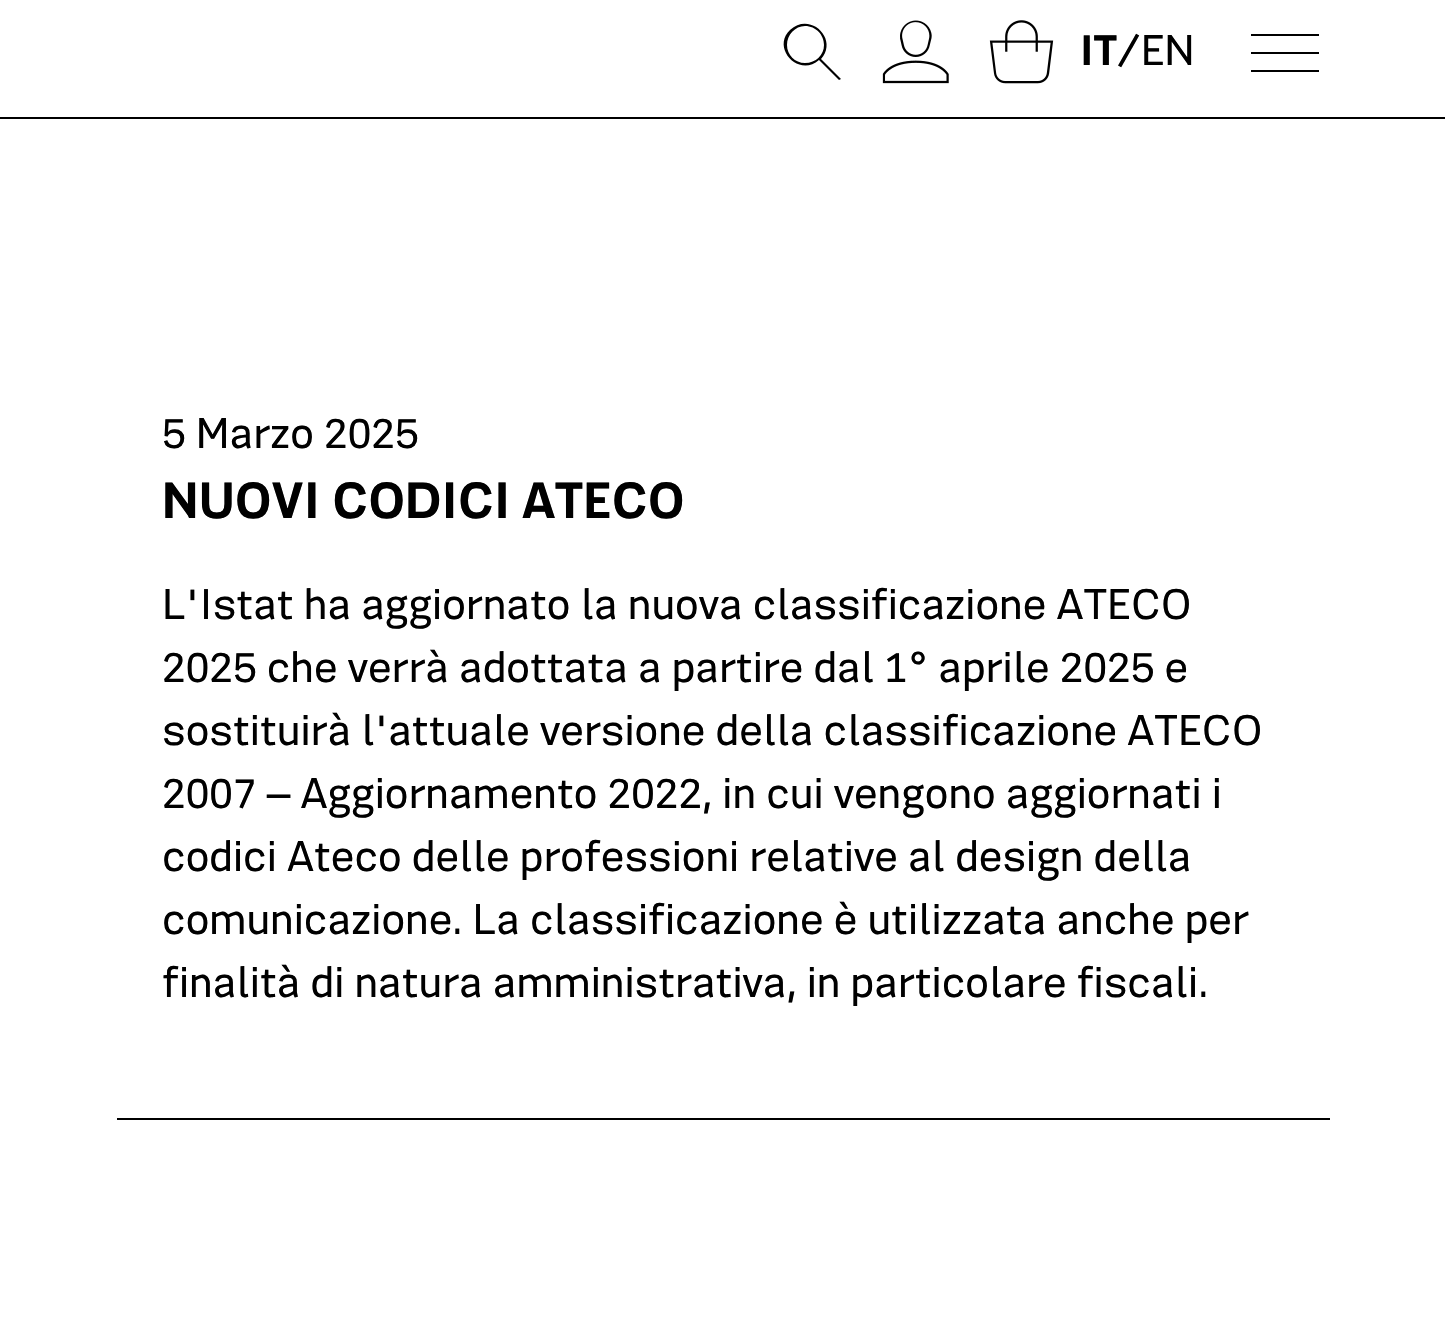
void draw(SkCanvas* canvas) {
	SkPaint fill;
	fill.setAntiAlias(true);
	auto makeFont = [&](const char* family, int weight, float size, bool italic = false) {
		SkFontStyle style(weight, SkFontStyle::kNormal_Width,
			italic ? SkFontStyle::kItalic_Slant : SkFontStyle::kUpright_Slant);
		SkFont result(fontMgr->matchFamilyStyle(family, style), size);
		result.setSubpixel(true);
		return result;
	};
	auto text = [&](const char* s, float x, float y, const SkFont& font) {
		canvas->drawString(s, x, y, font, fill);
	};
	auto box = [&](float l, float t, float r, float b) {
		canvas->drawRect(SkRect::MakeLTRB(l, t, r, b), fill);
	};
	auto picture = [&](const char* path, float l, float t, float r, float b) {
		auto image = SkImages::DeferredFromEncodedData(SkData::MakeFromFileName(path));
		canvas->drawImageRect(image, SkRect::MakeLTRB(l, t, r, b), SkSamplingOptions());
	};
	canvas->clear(0xFFFFFFFF);
	fill.setColor(0xFF000000);
	box(0, 117, 1445, 119);
	canvas->drawPath(SkPathBuilder().moveTo(841, 79).lineTo(821, 59).cubicTo(839, 39, 810, 11, 790, 30).cubicTo(771, 48, 799, 78, 819, 60).lineTo(839, 80).close().moveTo(805, 63).cubicTo(795, 63, 787, 55, 787, 45).cubicTo(787, 35, 795, 26, 805, 26).cubicTo(816, 26, 824, 35, 824, 45).cubicTo(824, 55, 816, 63, 805, 63).close().detach(), fill);
	picture("image0.png", 882, 20, 949, 84);
	picture("image1.png", 989, 20, 1054, 84);
	box(1251, 34, 1319, 36);
	box(1251, 52, 1319, 54);
	box(1251, 70, 1319, 72);
	box(117, 1118, 1330, 1120);
	auto font1 = makeFont("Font", 700, 45);
	text("IT", 1080, 65, font1);
	auto font2 = makeFont("Font", 400, 45);
	text("/EN", 1117, 65, font2);
	text("5 Marzo 2025", 162, 448, font2);
	auto font3 = makeFont("Font", 700, 54);
	text("NUOVI CODICI ATECO", 162, 518, font3);
	text("L'Istat ha aggiornato la nuova classificazione ATECO", 162, 619, font2);
	text("2025 che verrà adottata a partire dal 1° aprile 2025 e", 162, 682, font2);
	text("sostituirà l'attuale versione della classificazione ATECO", 162, 745, font2);
	text("2007 – Aggiornamento 2022, in cui vengono aggiornati i", 162, 808, font2);
	text("codici Ateco delle professioni relative al design della", 162, 871, font2);
	text("comunicazione. La classificazione è utilizzata anche per", 162, 934, font2);
	text("finalità di natura amministrativa, in particolare fiscali.", 162, 997, font2);
}
